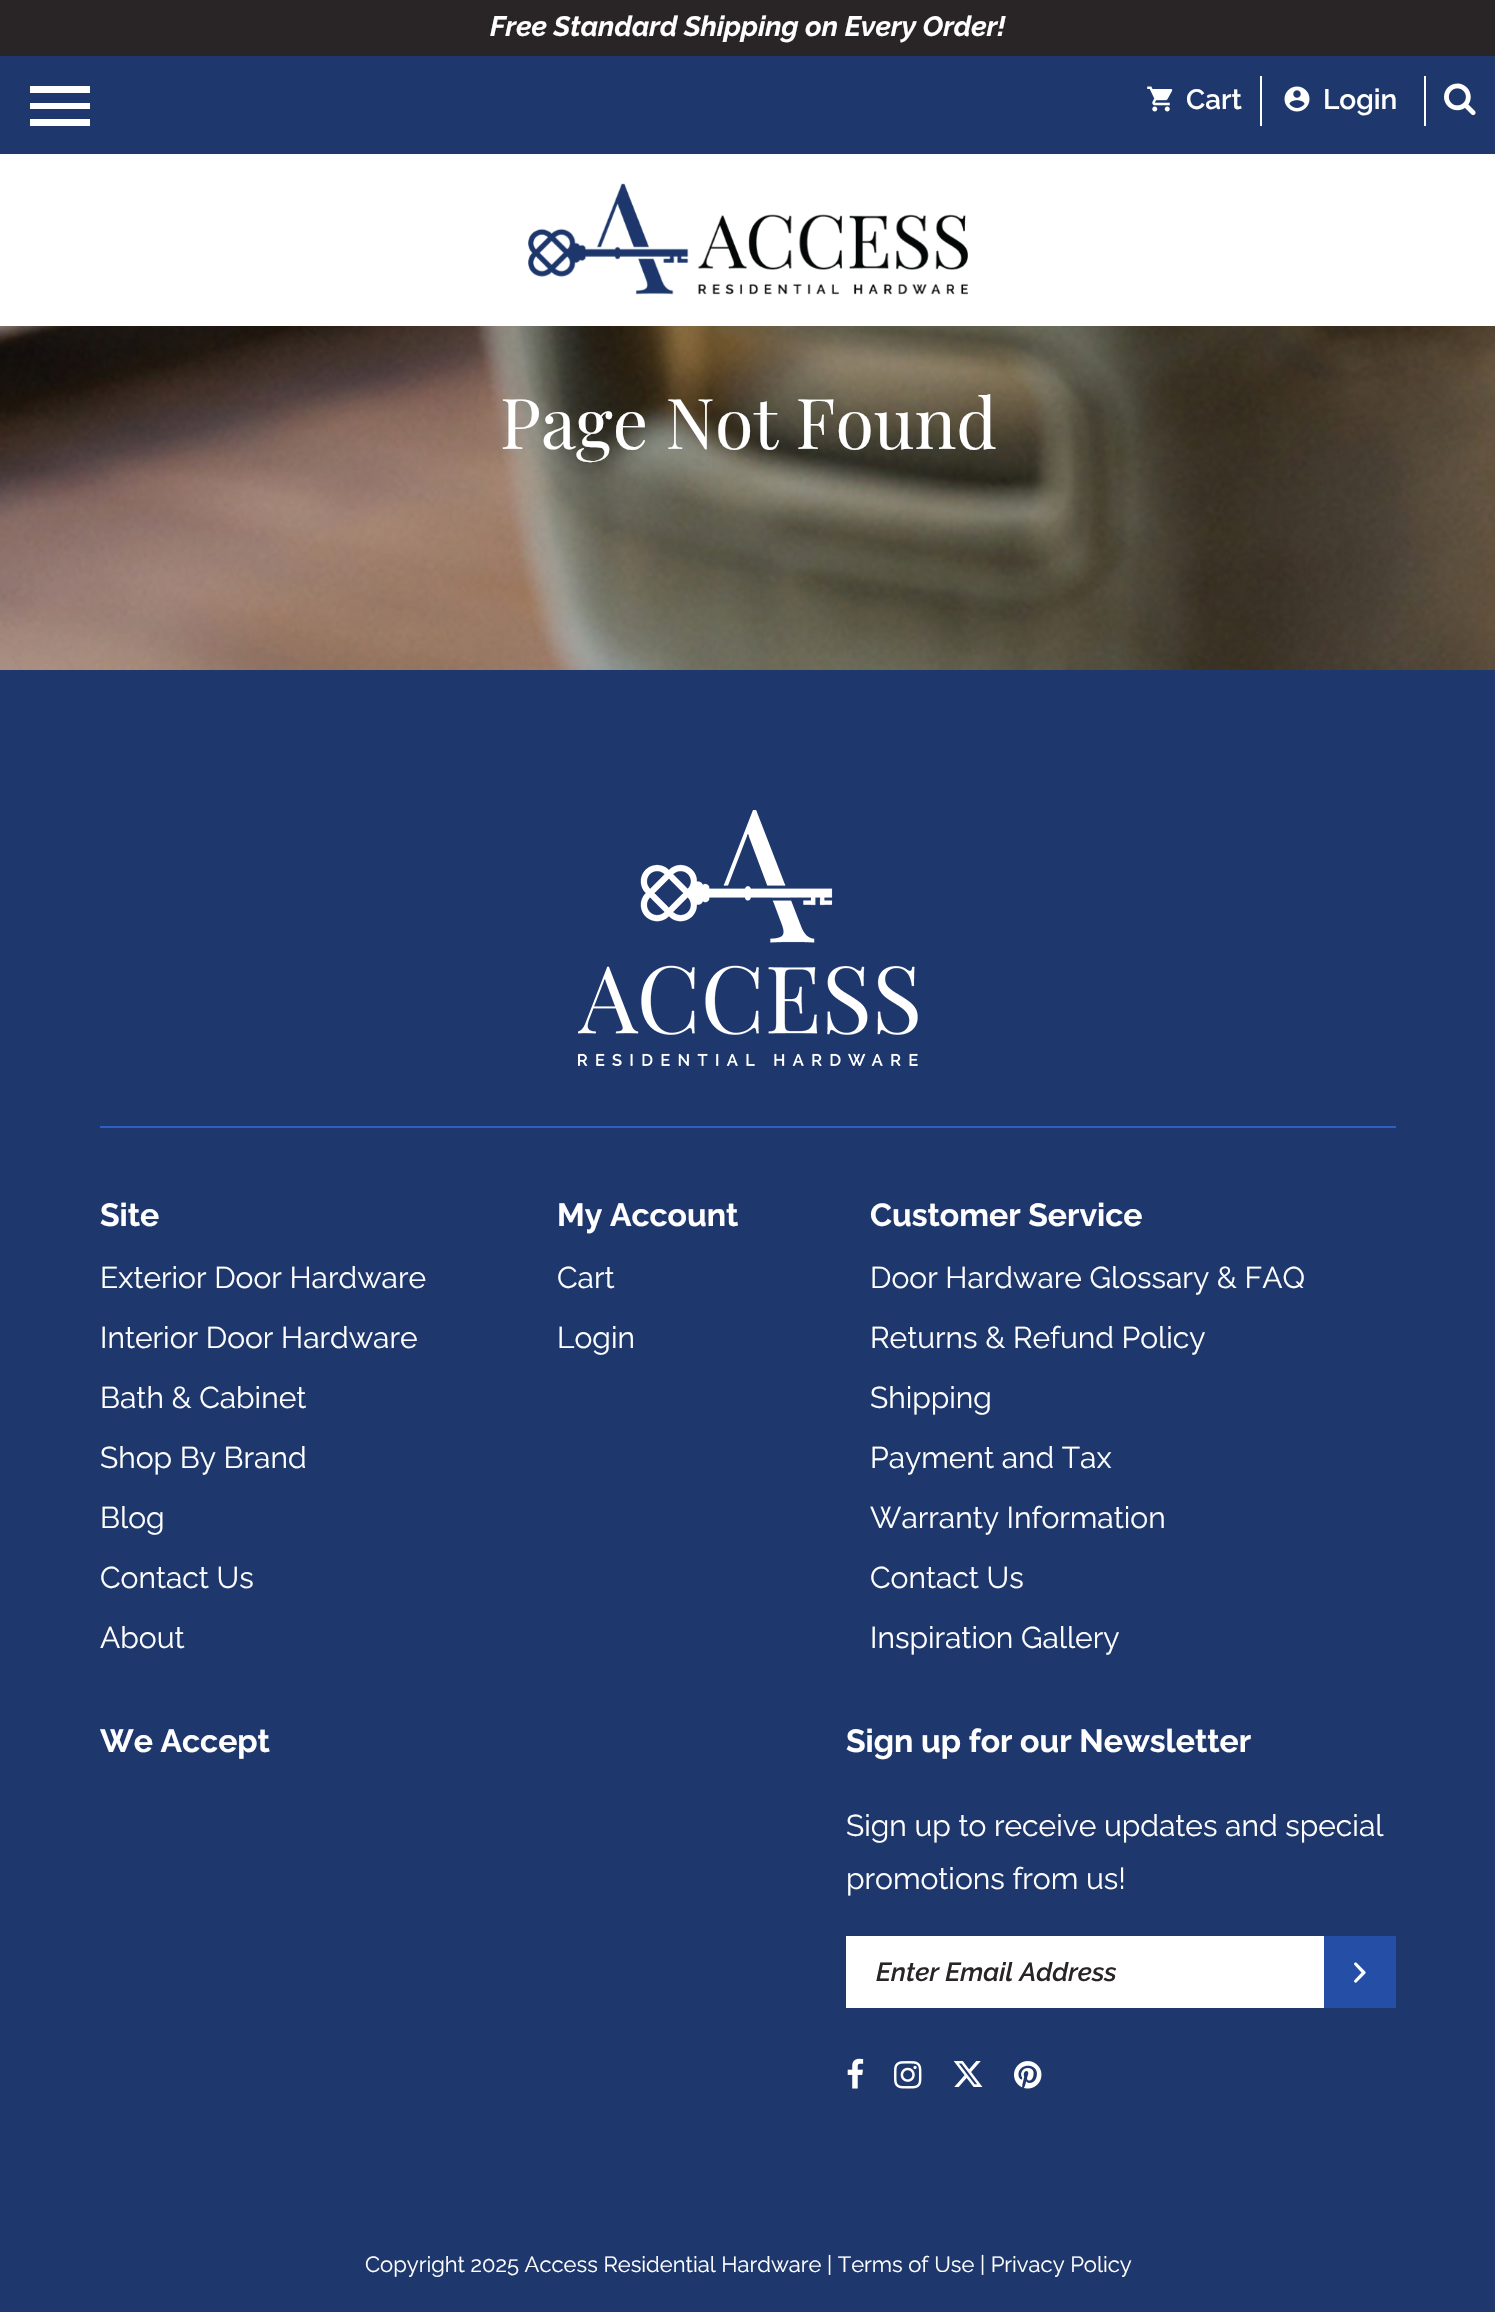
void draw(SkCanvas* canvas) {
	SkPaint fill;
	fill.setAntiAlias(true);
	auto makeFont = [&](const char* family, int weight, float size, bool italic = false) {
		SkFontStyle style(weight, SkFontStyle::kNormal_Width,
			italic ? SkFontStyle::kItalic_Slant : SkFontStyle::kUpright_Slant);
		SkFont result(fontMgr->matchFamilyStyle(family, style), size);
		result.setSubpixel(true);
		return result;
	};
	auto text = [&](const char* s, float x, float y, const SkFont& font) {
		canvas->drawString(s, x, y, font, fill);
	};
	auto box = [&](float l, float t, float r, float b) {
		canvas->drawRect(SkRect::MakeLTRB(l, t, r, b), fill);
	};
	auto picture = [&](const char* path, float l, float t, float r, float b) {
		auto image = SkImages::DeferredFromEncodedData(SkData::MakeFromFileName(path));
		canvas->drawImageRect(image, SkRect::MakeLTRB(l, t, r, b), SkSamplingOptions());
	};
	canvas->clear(0xFF1E376C);
	fill.setColor(0xFFFFFFFF);
	box(0, 154, 1495, 326);
	fill.setColor(0xFF292526);
	box(0, 0, 1495, 56);
	fill.setColor(0xFFFFFFFF);
	canvas->drawPath(SkPathBuilder().moveTo(30, 86).lineTo(90, 86).lineTo(90, 93).lineTo(30, 93).close().moveTo(30, 109).lineTo(30, 103).lineTo(90, 103).lineTo(90, 109).close().moveTo(30, 126).lineTo(30, 119).lineTo(90, 119).lineTo(90, 126).close().detach(), fill);
	picture("image0.png", 1147, 86, 1173, 112);
	box(1260, 76, 1262, 126);
	picture("image1.png", 1284, 86, 1310, 112);
	box(1424, 76, 1426, 126);
	picture("image2.png", 1444, 83, 1476, 116);
	picture("image3.png", 528, 183, 968, 295);
	picture("image4.png", 0, 326, 1495, 670);
	fill.setColor(0xFF2E5FC6);
	box(100, 1126, 1396, 1128);
	picture("image5.png", 578, 810, 918, 1066);
	fill.setColor(0xFFFFFFFF);
	box(846, 1936, 1324, 2008);
	fill.setColor(0xFF254EA6);
	box(1324, 1936, 1396, 2008);
	picture("image6.png", 1354, 1962, 1366, 1983);
	picture("image7.png", 847, 2058, 864, 2089);
	picture("image8.png", 894, 2061, 922, 2089);
	picture("image9.png", 953, 2061, 983, 2087);
	picture("image10.png", 1014, 2061, 1042, 2089);
	auto font1 = makeFont("Raleway", 700, 28, true);
	fill.setColor(0xFFFFFFFF);
	text("Free Standard Shipping on Every Order!", 490, 36, font1);
	auto font2 = makeFont("Raleway", 600, 28);
	text("Cart", 1186, 109, font2);
	text("Login", 1323, 109, font2);
	auto font3 = makeFont("Playfair Display", 400, 70);
	text("Page Not Found", 500, 449, font3);
	auto font4 = makeFont("Raleway", 700, 32);
	text("Site", 100, 1226, font4);
	auto font5 = makeFont("Raleway", 400, 30);
	text("Exterior Door Hardware", 100, 1288, font5);
	text("Interior Door Hardware", 100, 1348, font5);
	text("Bath & Cabinet", 100, 1408, font5);
	text("Shop By Brand", 100, 1468, font5);
	text("Blog", 100, 1528, font5);
	text("Contact Us", 100, 1588, font5);
	text("About", 100, 1648, font5);
	text("My Account", 557, 1226, font4);
	text("Cart", 557, 1288, font5);
	text("Login", 557, 1348, font5);
	text("Customer Service", 870, 1226, font4);
	text("Door Hardware Glossary & FAQ", 870, 1288, font5);
	text("Returns & Refund Policy", 870, 1348, font5);
	text("Shipping", 870, 1408, font5);
	text("Payment and Tax", 870, 1468, font5);
	text("Warranty Information", 870, 1528, font5);
	text("Contact Us", 870, 1588, font5);
	text("Inspiration Gallery", 870, 1648, font5);
	text("We Accept", 100, 1752, font4);
	text("Sign up for our Newsletter", 846, 1752, font4);
	text("Sign up to receive updates and special", 846, 1836, font5);
	text("promotions from us!", 846, 1889, font5);
	auto font6 = makeFont("Raleway", 600, 26, true);
	fill.setColor(0xFF292526);
	text("Enter Email Address", 876, 1981, font6);
	auto font7 = makeFont("Raleway", 400, 22);
	fill.setColor(0xFFFFFFFF);
	text("Copyright 2025 Access Residential Hardware | Terms of Use | Privacy Policy", 365, 2272, font7);
}
